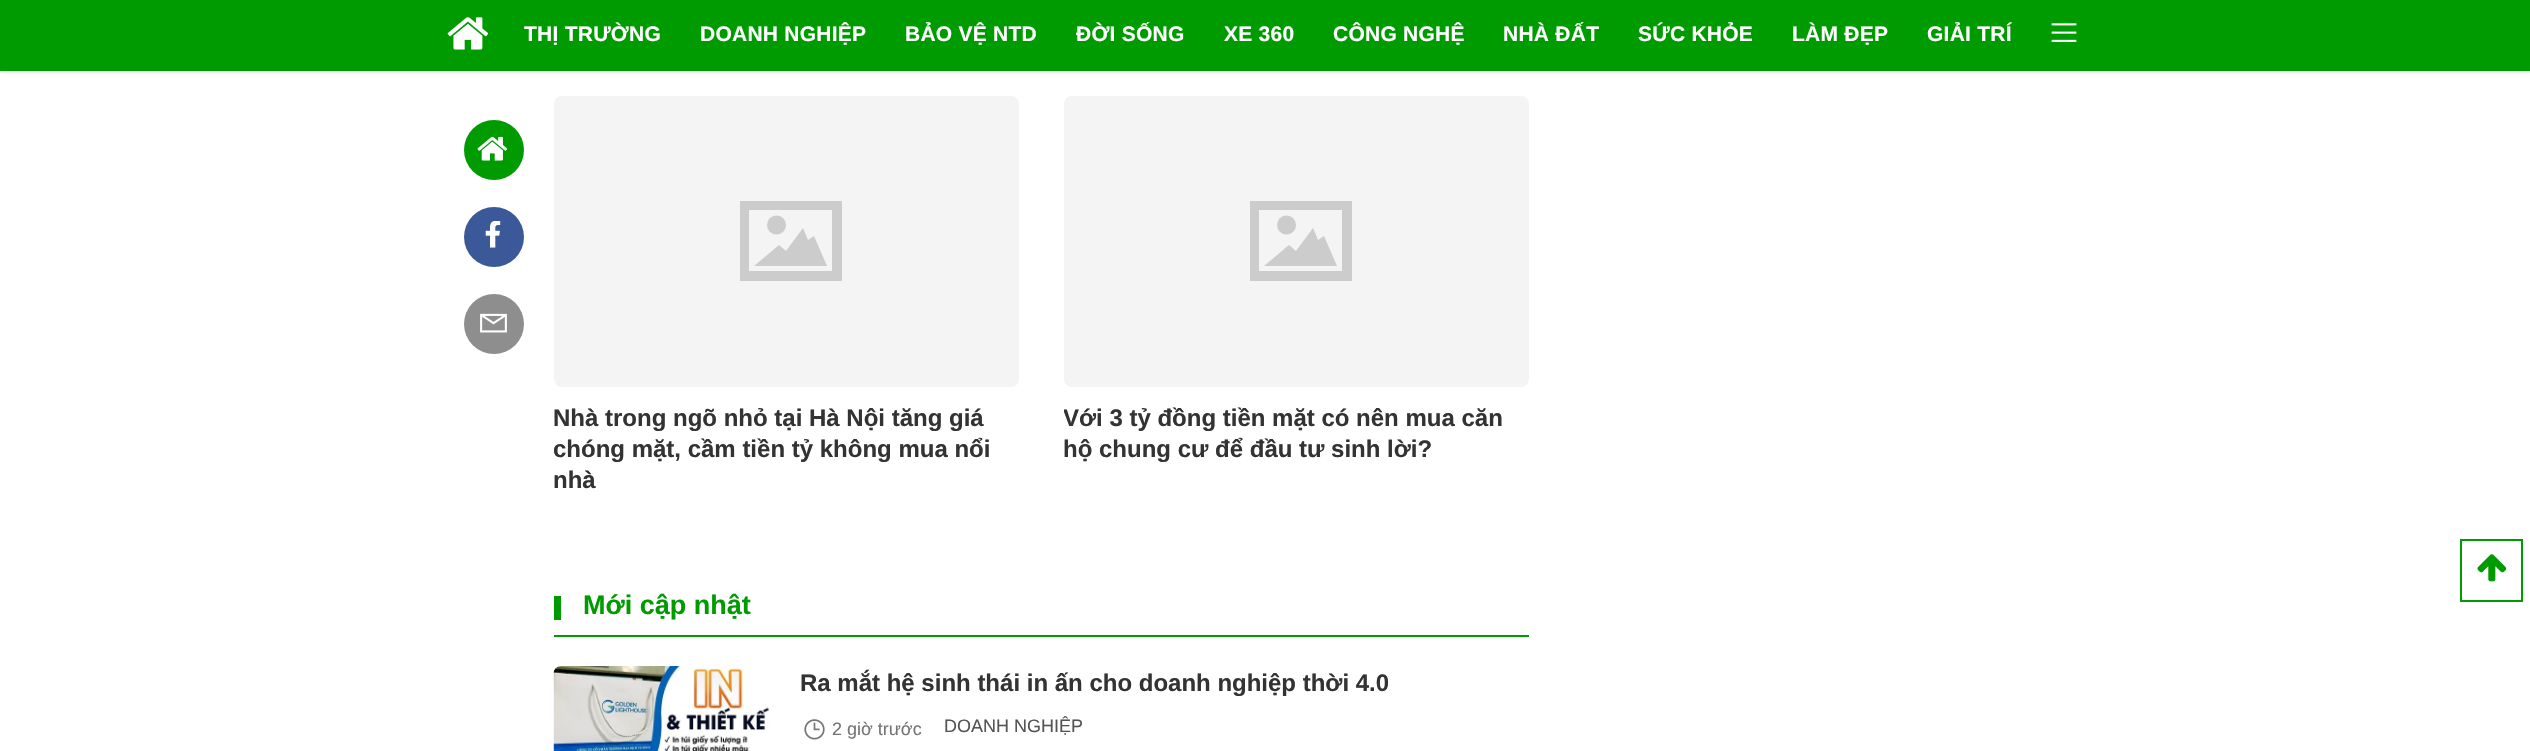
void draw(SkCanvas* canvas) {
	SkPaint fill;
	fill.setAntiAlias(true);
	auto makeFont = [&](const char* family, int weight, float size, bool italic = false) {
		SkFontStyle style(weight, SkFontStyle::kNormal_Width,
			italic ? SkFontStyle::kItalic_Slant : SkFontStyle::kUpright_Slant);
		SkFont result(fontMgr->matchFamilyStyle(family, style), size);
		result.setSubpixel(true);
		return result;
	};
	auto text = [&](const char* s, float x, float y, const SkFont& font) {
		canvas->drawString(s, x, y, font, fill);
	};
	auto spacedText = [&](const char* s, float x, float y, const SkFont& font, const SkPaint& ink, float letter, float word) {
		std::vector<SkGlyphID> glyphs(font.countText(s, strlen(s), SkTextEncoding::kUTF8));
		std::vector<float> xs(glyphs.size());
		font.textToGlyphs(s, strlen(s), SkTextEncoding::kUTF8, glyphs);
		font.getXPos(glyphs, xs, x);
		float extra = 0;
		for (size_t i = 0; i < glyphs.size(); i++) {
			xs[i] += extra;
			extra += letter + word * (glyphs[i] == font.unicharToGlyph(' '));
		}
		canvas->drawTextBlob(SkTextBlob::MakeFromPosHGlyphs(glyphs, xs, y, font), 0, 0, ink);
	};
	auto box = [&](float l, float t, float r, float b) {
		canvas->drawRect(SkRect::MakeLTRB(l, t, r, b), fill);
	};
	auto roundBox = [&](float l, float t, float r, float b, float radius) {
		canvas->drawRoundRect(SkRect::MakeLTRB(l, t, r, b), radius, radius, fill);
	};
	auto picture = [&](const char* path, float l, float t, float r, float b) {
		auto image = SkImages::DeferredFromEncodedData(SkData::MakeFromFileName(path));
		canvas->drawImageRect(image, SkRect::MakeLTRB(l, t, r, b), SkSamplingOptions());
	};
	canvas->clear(0xFFFFFFFF);
	fill.setColor(0x1A000000);
	fill.setMaskFilter(SkMaskFilter::MakeBlur(kNormal_SkBlurStyle, 2));
	canvas->drawRect(SkRect::MakeLTRB(0, 2, 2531, 72), fill);
	fill.setMaskFilter(nullptr);
	fill.setColor(0xFF009B00);
	box(0, 0, 2530, 71);
	picture("image0.png", 447, 17, 489, 50);
	picture("image1.png", 2051, 23, 2077, 42);
	canvas->drawCircle(494, 150, 30, fill);
	picture("image2.png", 477, 136, 508, 161);
	fill.setColor(0xFF3B5998);
	canvas->drawCircle(494, 237, 30, fill);
	picture("image3.png", 485, 221, 501, 248);
	fill.setColor(0xFF8E8E8E);
	canvas->drawCircle(494, 324, 30, fill);
	picture("image4.png", 480, 313, 507, 333);
	fill.setColor(0xFFF5F4F4);
	roundBox(554, 96, 1019, 387, 8);
	fill.setColor(0xFFCCCCCC);
	canvas->drawPath(SkPathBuilder().moveTo(740, 201).lineTo(740, 281).lineTo(842, 281).lineTo(842, 201).close().moveTo(834, 271).lineTo(749, 271).lineTo(749, 210).lineTo(832, 210).lineTo(832, 273).detach(), fill);
	canvas->drawPath(SkPathBuilder().moveTo(754, 266).lineTo(779, 245).lineTo(786, 251).lineTo(803, 228).lineTo(808, 240).lineTo(814, 236).lineTo(827, 266).close().detach(), fill);
	canvas->drawCircle(776.5f, 225, 9.5f, fill);
	fill.setColor(0xFFF5F4F4);
	roundBox(1064, 96, 1529, 387, 8);
	fill.setColor(0xFFCCCCCC);
	canvas->drawPath(SkPathBuilder().moveTo(1250, 201).lineTo(1250, 281).lineTo(1352, 281).lineTo(1352, 201).close().moveTo(1344, 271).lineTo(1259, 271).lineTo(1259, 210).lineTo(1342, 210).lineTo(1342, 273).detach(), fill);
	canvas->drawPath(SkPathBuilder().moveTo(1264, 266).lineTo(1289, 245).lineTo(1296, 251).lineTo(1313, 228).lineTo(1318, 240).lineTo(1324, 236).lineTo(1337, 266).close().detach(), fill);
	canvas->drawCircle(1286.5f, 225, 9.5f, fill);
	fill.setColor(0xFF009B00);
	box(554, 635, 1529, 637);
	box(554, 596, 561, 620);
	picture("image5.png", 553, 666, 786, 751);
	picture("image6.png", 804, 719, 825, 740);
	fill.setStyle(SkPaint::kStroke_Style);
	fill.setStrokeWidth(2);
	canvas->drawRect(SkRect::MakeLTRB(2461, 540, 2522, 601), fill);
	picture("image7.png", 2477, 554, 2507, 582);
	auto font1 = makeFont("Liberation Sans", 700, 21);
	fill.setStyle(SkPaint::kFill_Style);
	fill.setColor(0xFFFFFFFF);
	spacedText("THỊ TRƯỜNG", 524, 41, font1, fill, 0.25f, 0);
	spacedText("DOANH NGHIỆP", 700, 41, font1, fill, 0.25f, 0);
	spacedText("BẢO VỆ NTD", 905, 41, font1, fill, 0.25f, 0);
	spacedText("ĐỜI SỐNG", 1076, 41, font1, fill, 0.25f, 0);
	spacedText("XE 360", 1224, 41, font1, fill, 0.25f, 0);
	spacedText("CÔNG NGHỆ", 1333, 41, font1, fill, 0.25f, 0);
	spacedText("NHÀ ĐẤT", 1503, 41, font1, fill, 0.25f, 0);
	spacedText("SỨC KHỎE", 1638, 41, font1, fill, 0.25f, 0);
	spacedText("LÀM ĐẸP", 1792, 41, font1, fill, 0.25f, 0);
	spacedText("GIẢI TRÍ", 1927, 41, font1, fill, 0.25f, 0);
	auto font2 = makeFont("Liberation Sans", 700, 24);
	fill.setColor(0xFF333333);
	text("Nhà trong ngõ nhỏ tại Hà Nội tăng giá", 553, 426, font2);
	canvas->save();
	canvas->clipRect(SkRect::MakeLTRB(554, 404, 1019, 497));
	text("chóng mặt, cầm tiền tỷ không mua nổi", 553, 457, font2);
	canvas->restore();
	text("nhà", 553, 488, font2);
	canvas->save();
	canvas->clipRect(SkRect::MakeLTRB(1064, 404, 1529, 467));
	text("Với 3 tỷ đồng tiền mặt có nên mua căn", 1063, 426, font2);
	canvas->restore();
	text("hộ chung cư để đầu tư sinh lời?", 1063, 457, font2);
	auto font3 = makeFont("Liberation Sans", 700, 27);
	fill.setColor(0xFF009B00);
	text("Mới cập nhật", 583, 614, font3);
	fill.setColor(0xFF333333);
	text("Ra mắt hệ sinh thái in ấn cho doanh nghiệp thời 4.0", 800, 691, font2);
	auto font4 = makeFont("Liberation Sans", 400, 18);
	fill.setColor(0xFF757575);
	text("2 giờ trước", 832, 735, font4);
	fill.setColor(0xFF545454);
	text("DOANH NGHIỆP", 944, 732, font4);
}
